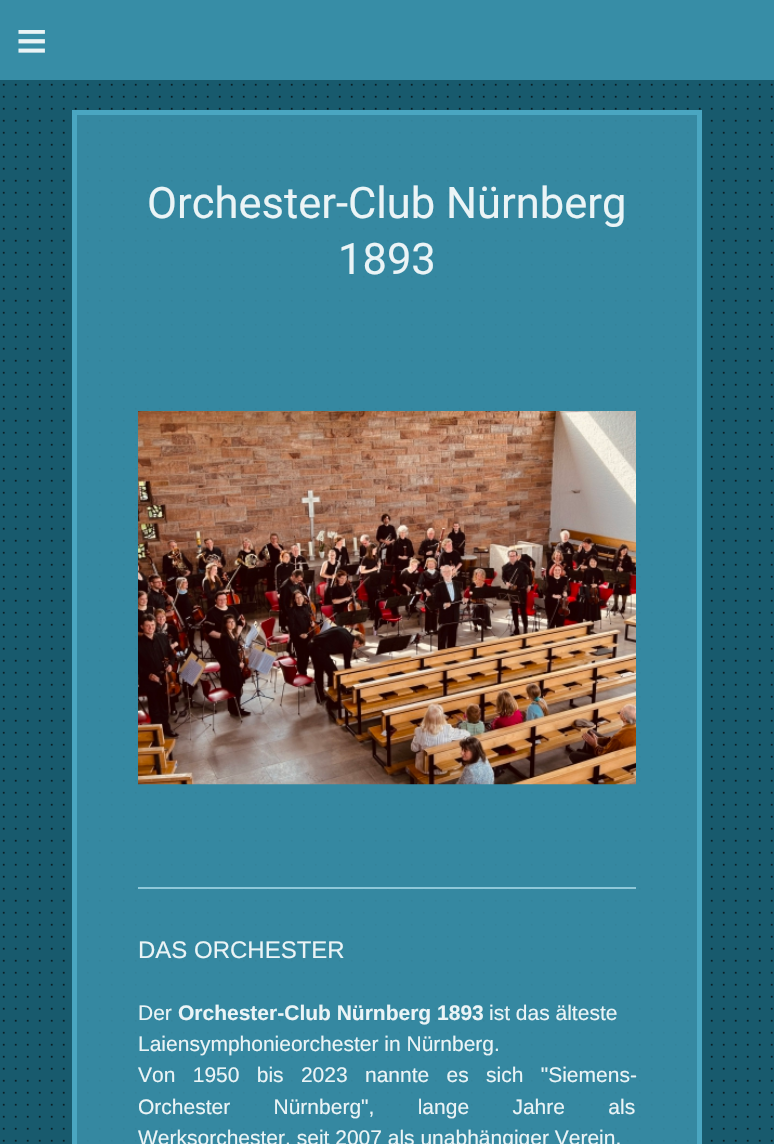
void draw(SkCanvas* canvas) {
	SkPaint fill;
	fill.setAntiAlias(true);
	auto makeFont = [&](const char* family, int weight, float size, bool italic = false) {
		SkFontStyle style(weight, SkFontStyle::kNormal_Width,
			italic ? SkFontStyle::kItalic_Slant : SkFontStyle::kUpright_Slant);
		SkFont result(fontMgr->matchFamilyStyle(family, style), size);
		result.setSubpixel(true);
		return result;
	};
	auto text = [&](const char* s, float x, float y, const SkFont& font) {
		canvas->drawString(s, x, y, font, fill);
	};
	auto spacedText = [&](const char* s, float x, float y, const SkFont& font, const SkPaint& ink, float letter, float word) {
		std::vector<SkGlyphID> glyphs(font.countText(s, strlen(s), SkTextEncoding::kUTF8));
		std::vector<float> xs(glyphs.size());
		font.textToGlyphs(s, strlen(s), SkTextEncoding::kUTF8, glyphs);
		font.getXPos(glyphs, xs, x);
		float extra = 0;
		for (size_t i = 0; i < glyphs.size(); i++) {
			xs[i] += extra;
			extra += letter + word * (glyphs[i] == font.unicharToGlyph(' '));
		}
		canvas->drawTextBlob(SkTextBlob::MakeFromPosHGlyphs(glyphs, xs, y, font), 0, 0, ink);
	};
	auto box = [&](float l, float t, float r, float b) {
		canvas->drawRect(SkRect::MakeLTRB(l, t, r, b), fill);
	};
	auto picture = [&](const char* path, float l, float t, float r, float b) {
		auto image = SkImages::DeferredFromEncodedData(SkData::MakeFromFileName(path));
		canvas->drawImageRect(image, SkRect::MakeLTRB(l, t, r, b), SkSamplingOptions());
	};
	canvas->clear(0xFF185A6D);
	picture("image0.png", 2, 83, 773, 1142);
	fill.setColor(0xFF378DA6);
	box(0, 0, 774, 80);
	fill.setColor(0xE6378DA6);
	canvas->drawRect(SkRect::MakeLTRB(74.5f, 112.5f, 699.5f, 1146.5f), fill);
	fill.setStyle(SkPaint::kStroke_Style);
	fill.setStrokeWidth(5);
	fill.setColor(0xFF4AA6C1);
	canvas->drawRect(SkRect::MakeLTRB(74.5f, 112.5f, 699.5f, 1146.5f), fill);
	picture("image1.png", 138, 411, 636, 785);
	fill.setStyle(SkPaint::kFill_Style);
	fill.setColor(0xFF8FC7D8);
	box(138, 887, 636, 889);
	auto font1 = makeFont("Liberation Sans", 400, 54);
	fill.setColor(0xFFEBF4F6);
	spacedText("≡", 16, 59, font1, fill, 16, 0);
	auto font2 = makeFont("Roboto", 400, 43.5f);
	text("Orchester-Club Nürnberg", 147, 218, font2);
	text("1893", 338, 274, font2);
	auto font3 = makeFont("Liberation Sans", 400, 24);
	text("DAS ORCHESTER", 138, 958, font3);
	auto font4 = makeFont("Liberation Sans", 400, 21);
	text("Der", 138, 1020, font4);
	auto font5 = makeFont("Liberation Sans", 700, 21);
	text("Orchester-Club Nürnberg 1893", 178, 1020, font5);
	text("ist das älteste", 489, 1020, font4);
	text("Laiensymphonieorchester in Nürnberg.", 138, 1051, font4);
	spacedText("Von 1950 bis 2023 nannte es sich \"Siemens-", 138, 1082, font4, fill, 0, 11.5f);
	spacedText("Orchester Nürnberg\", lange Jahre als", 138, 1114, font4, fill, 0, 37.5f);
	text("Werksorchester, seit 2007 als unabhängiger Verein.", 138, 1145, font4);
}
